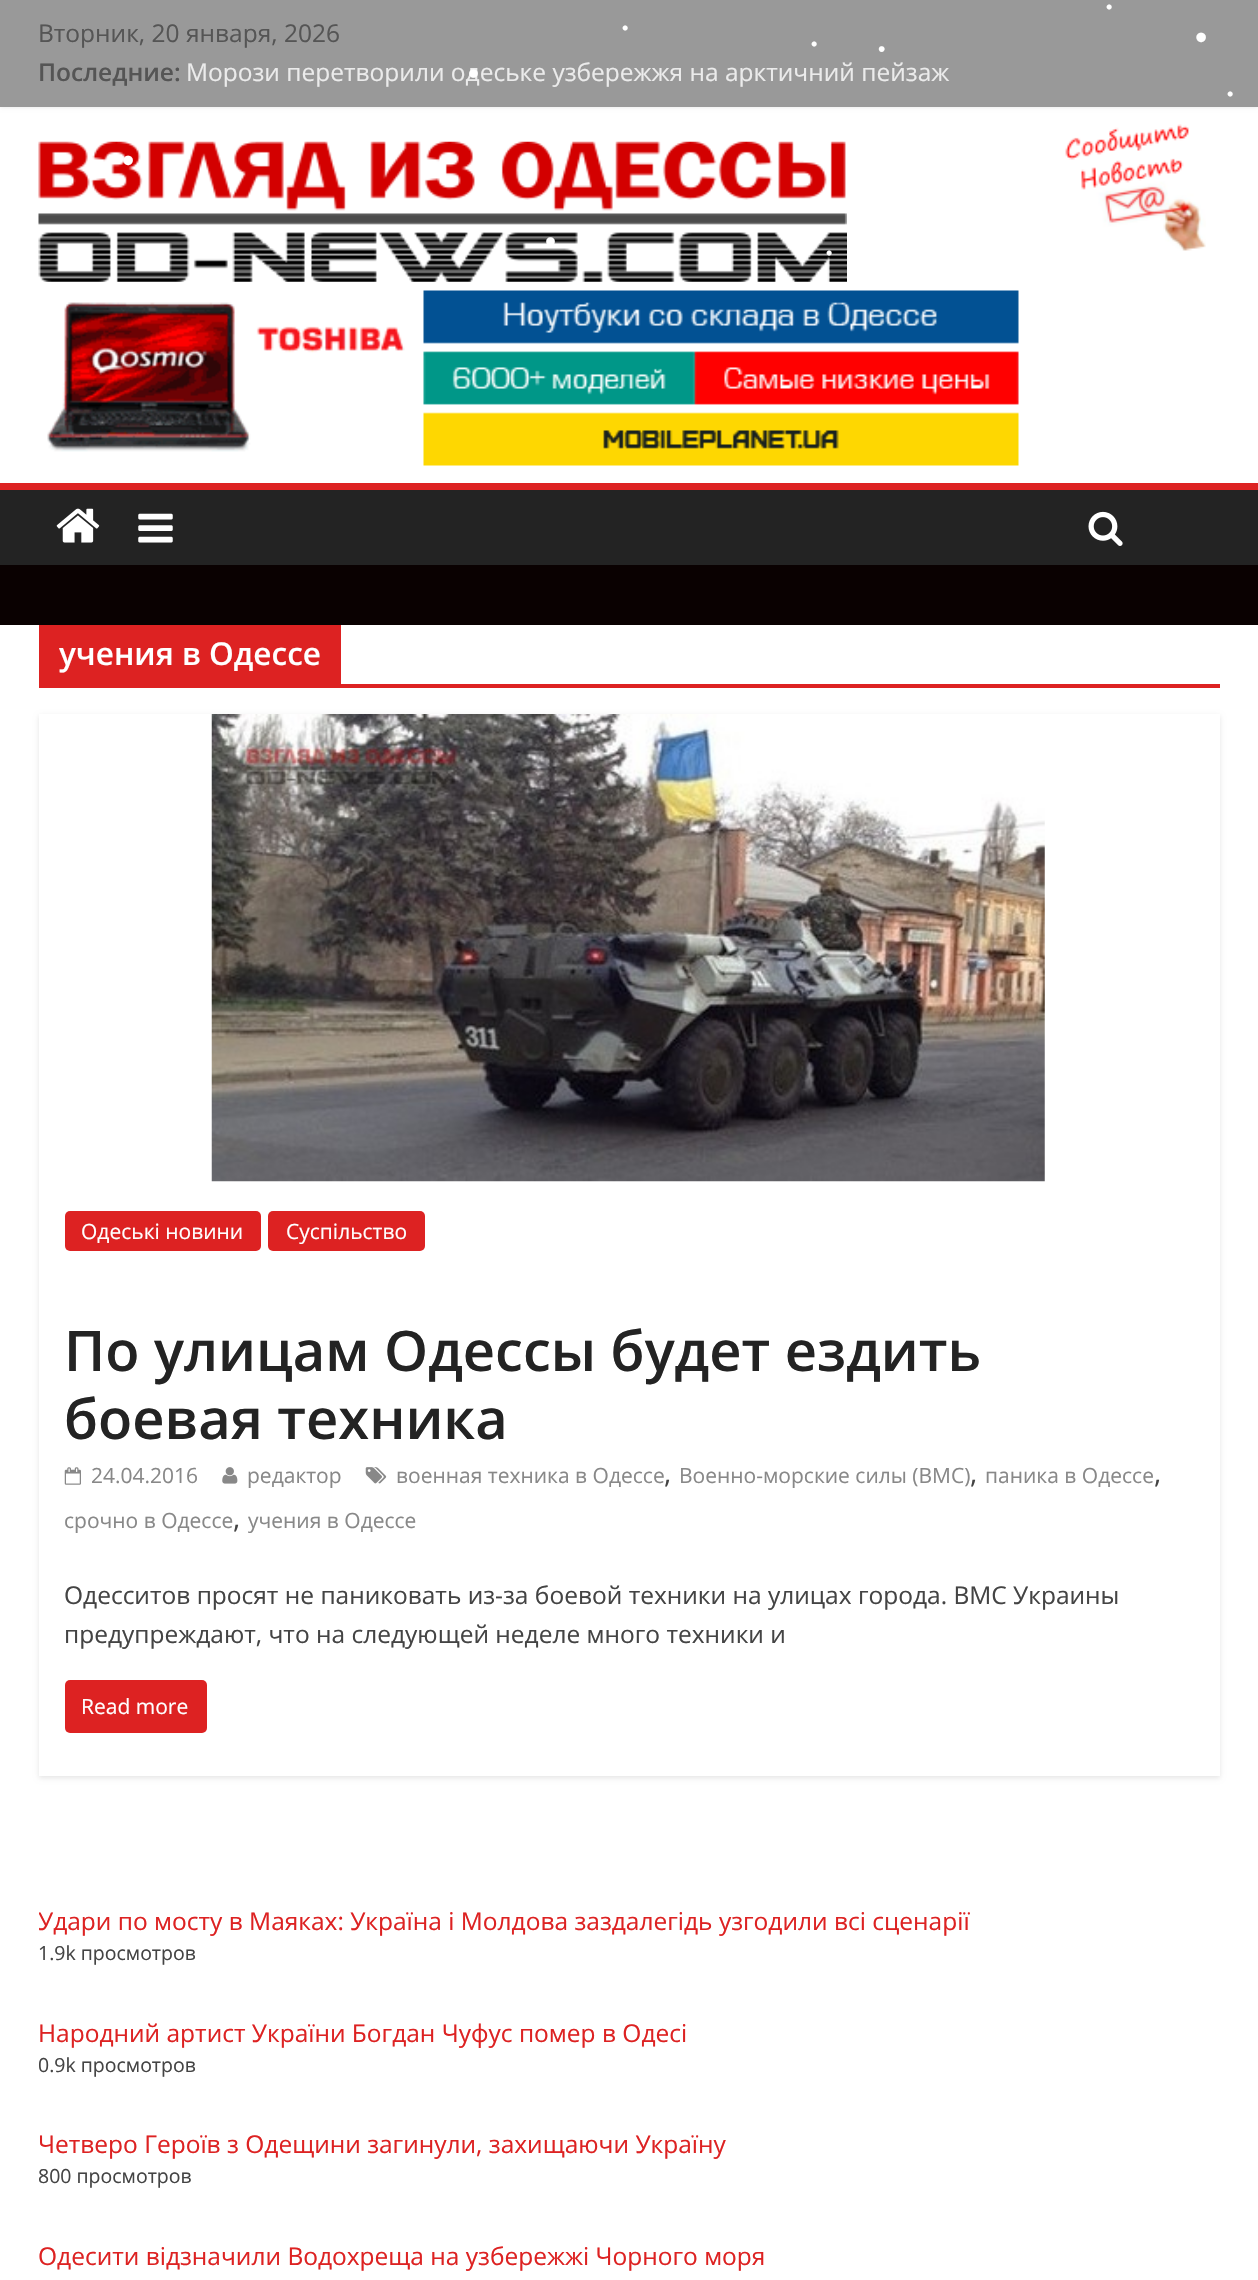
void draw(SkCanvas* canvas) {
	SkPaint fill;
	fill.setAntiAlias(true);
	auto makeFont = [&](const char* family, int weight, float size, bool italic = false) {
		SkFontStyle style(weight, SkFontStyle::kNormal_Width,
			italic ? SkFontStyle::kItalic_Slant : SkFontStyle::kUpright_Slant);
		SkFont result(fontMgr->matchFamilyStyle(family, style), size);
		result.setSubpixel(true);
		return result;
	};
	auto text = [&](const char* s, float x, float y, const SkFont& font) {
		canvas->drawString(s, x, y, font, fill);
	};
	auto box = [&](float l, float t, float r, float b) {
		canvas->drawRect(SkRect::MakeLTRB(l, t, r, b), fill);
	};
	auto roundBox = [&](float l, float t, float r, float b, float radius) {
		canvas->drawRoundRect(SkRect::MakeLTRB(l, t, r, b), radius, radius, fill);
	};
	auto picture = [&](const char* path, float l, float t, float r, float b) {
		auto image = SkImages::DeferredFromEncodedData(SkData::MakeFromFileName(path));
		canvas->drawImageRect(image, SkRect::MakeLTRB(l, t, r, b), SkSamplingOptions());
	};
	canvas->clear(0xFF0A0101);
	fill.setColor(0xFFFFFFFF);
	box(0, 107, 1258, 483);
	fill.setColor(0x1A000000);
	fill.setMaskFilter(SkMaskFilter::MakeBlur(kNormal_SkBlurStyle, 2));
	canvas->drawRect(SkRect::MakeLTRB(0, 0, 1258, 107), fill);
	fill.setMaskFilter(nullptr);
	fill.setColor(0xFF999999);
	box(0, 0, 1258, 107);
	picture("image0.png", 38, 141, 847, 282);
	picture("image1.png", 1065, 124, 1206, 251);
	picture("image2.png", 47, 290, 1019, 466);
	fill.setColor(0xFF232323);
	box(0, 490, 1258, 565);
	fill.setColor(0xFFDD2222);
	box(0, 483, 1258, 490);
	picture("image3.png", 56, 508, 100, 543);
	picture("image4.png", 138, 513, 173, 543);
	picture("image5.png", 1088, 511, 1123, 546);
	fill.setColor(0xFFFFFFFF);
	box(0, 625, 1258, 2280);
	fill.setColor(0xFFDD2222);
	box(39, 684, 1220, 688);
	box(39, 625, 341, 684);
	canvas->save();
	canvas->clipPath(SkPathBuilder(SkPathFillType::kEvenOdd).moveTo(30, 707).lineTo(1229, 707).lineTo(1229, 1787).lineTo(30, 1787).close().moveTo(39, 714).lineTo(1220, 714).lineTo(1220, 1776).lineTo(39, 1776).close().detach(), true);
	fill.setColor(0x1A000000);
	fill.setMaskFilter(SkMaskFilter::MakeBlur(kNormal_SkBlurStyle, 2.5f));
	canvas->drawRect(SkRect::MakeLTRB(39, 716, 1220, 1778), fill);
	fill.setMaskFilter(nullptr);
	canvas->restore();
	picture("image6.png", 211, 714, 1045, 1182);
	fill.setColor(0xFFDD2222);
	roundBox(65, 1211, 261, 1251, 5);
	roundBox(268, 1211, 425, 1251, 5);
	picture("image7.png", 365, 1467, 387, 1484);
	picture("image8.png", 64, 1467, 81, 1485);
	picture("image9.png", 222, 1467, 238, 1484);
	roundBox(65, 1680, 207, 1733, 5);
	auto font1 = makeFont("Liberation Sans", 400, 18);
	fill.setColor(0xFFFFFFFF);
	text("•", 1106, 13, font1);
	auto font2 = makeFont("Open Sans", 400, 24.5f);
	fill.setColor(0xFF555555);
	text("Вторник, 20 января, 2026", 38, 42, font2);
	auto font3 = makeFont("Open Sans", 600, 24.5f);
	text("Последние:", 38, 81, font3);
	fill.setColor(0xFFEBEBEB);
	text("Морози перетворили одеське узбережжя на арктичний пейзаж", 186, 81, font2);
	auto font4 = makeFont("Open Sans", 600, 31.5f);
	fill.setColor(0xFFFFFFFF);
	text("учения в Одессе", 59, 665, font4);
	auto font5 = makeFont("Open Sans", 400, 21);
	text("Одеські новини", 81, 1239, font5);
	text("Суспільство", 286, 1239, font5);
	auto font6 = makeFont("Open Sans", 600, 56);
	fill.setColor(0xFF232323);
	text("По улицам Одессы будет ездить", 64, 1371, font6);
	text("боевая техника", 64, 1439, font6);
	fill.setColor(0xFF888888);
	text("военная техника в Одессе", 396, 1483, font5);
	auto font7 = makeFont("Open Sans", 400, 28);
	fill.setColor(0xFF444444);
	text(",", 664, 1483, font7);
	fill.setColor(0xFF888888);
	text("Военно-морские силы (ВМС)", 679, 1483, font5);
	fill.setColor(0xFF444444);
	text(",", 970, 1483, font7);
	fill.setColor(0xFF888888);
	text("паника в Одессе", 985, 1483, font5);
	fill.setColor(0xFF444444);
	text(",", 1154, 1483, font7);
	fill.setColor(0xFF888888);
	text("срочно в Одессе", 64, 1528, font5);
	fill.setColor(0xFF444444);
	text(",", 233, 1528, font7);
	fill.setColor(0xFF888888);
	text("учения в Одессе", 248, 1528, font5);
	text("24.04.2016", 91, 1483, font5);
	text("редактор", 247, 1483, font5);
	fill.setColor(0xFF444444);
	text("Одесситов просят не паниковать из-за боевой техники на улицах города. ВМС Украины", 64, 1604, font2);
	text("предупреждают, что на следующей неделе много техники и", 64, 1643, font2);
	fill.setColor(0xFFFFFFFF);
	text("Read more", 81, 1714, font5);
	canvas->save();
	canvas->clipRect(SkRect::MakeLTRB(39, 1894, 1220, 1978));
	fill.setColor(0xFFDD2222);
	text("Удари по мосту в Маяках: Україна і Молдова заздалегідь узгодили всі сценарії", 38, 1930, font2);
	canvas->restore();
	auto font8 = makeFont("Open Sans", 400, 19.5f);
	fill.setColor(0xFF444444);
	text("1.9k просмотров", 38, 1960, font8);
	fill.setColor(0xFFDD2222);
	text("Народний артист України Богдан Чуфус помер в Одесі", 38, 2042, font2);
	canvas->save();
	canvas->clipRect(SkRect::MakeLTRB(39, 2006, 1220, 2090));
	fill.setColor(0xFF444444);
	text("0.9k просмотров", 38, 2072, font8);
	canvas->restore();
	fill.setColor(0xFFDD2222);
	text("Четверо Героїв з Одещини загинули, захищаючи Україну", 38, 2153, font2);
	canvas->save();
	canvas->clipRect(SkRect::MakeLTRB(39, 2118, 1220, 2200));
	fill.setColor(0xFF444444);
	text("800 просмотров", 38, 2183, font8);
	canvas->restore();
	fill.setColor(0xFFDD2222);
	text("Одесити відзначили Водохреща на узбережжі Чорного моря", 38, 2265, font2);
	fill.setColor(0xFFFFFFFF);
	text("•", 622, 34, font1);
	auto font9 = makeFont("Liberation Sans", 400, 35);
	text("•", 1195, 49, font9);
	text("•", 811, 50, font1);
	auto font10 = makeFont("Liberation Sans", 400, 21);
	text("•", 878, 56, font10);
	auto font11 = makeFont("Liberation Sans", 400, 31.5f);
	text("•", 468, 84, font11);
	text("•", 1227, 100, font1);
	text("•", 122, 172, font9);
	text("•", 545, 252, font11);
	text("•", 826, 259, font1);
}
